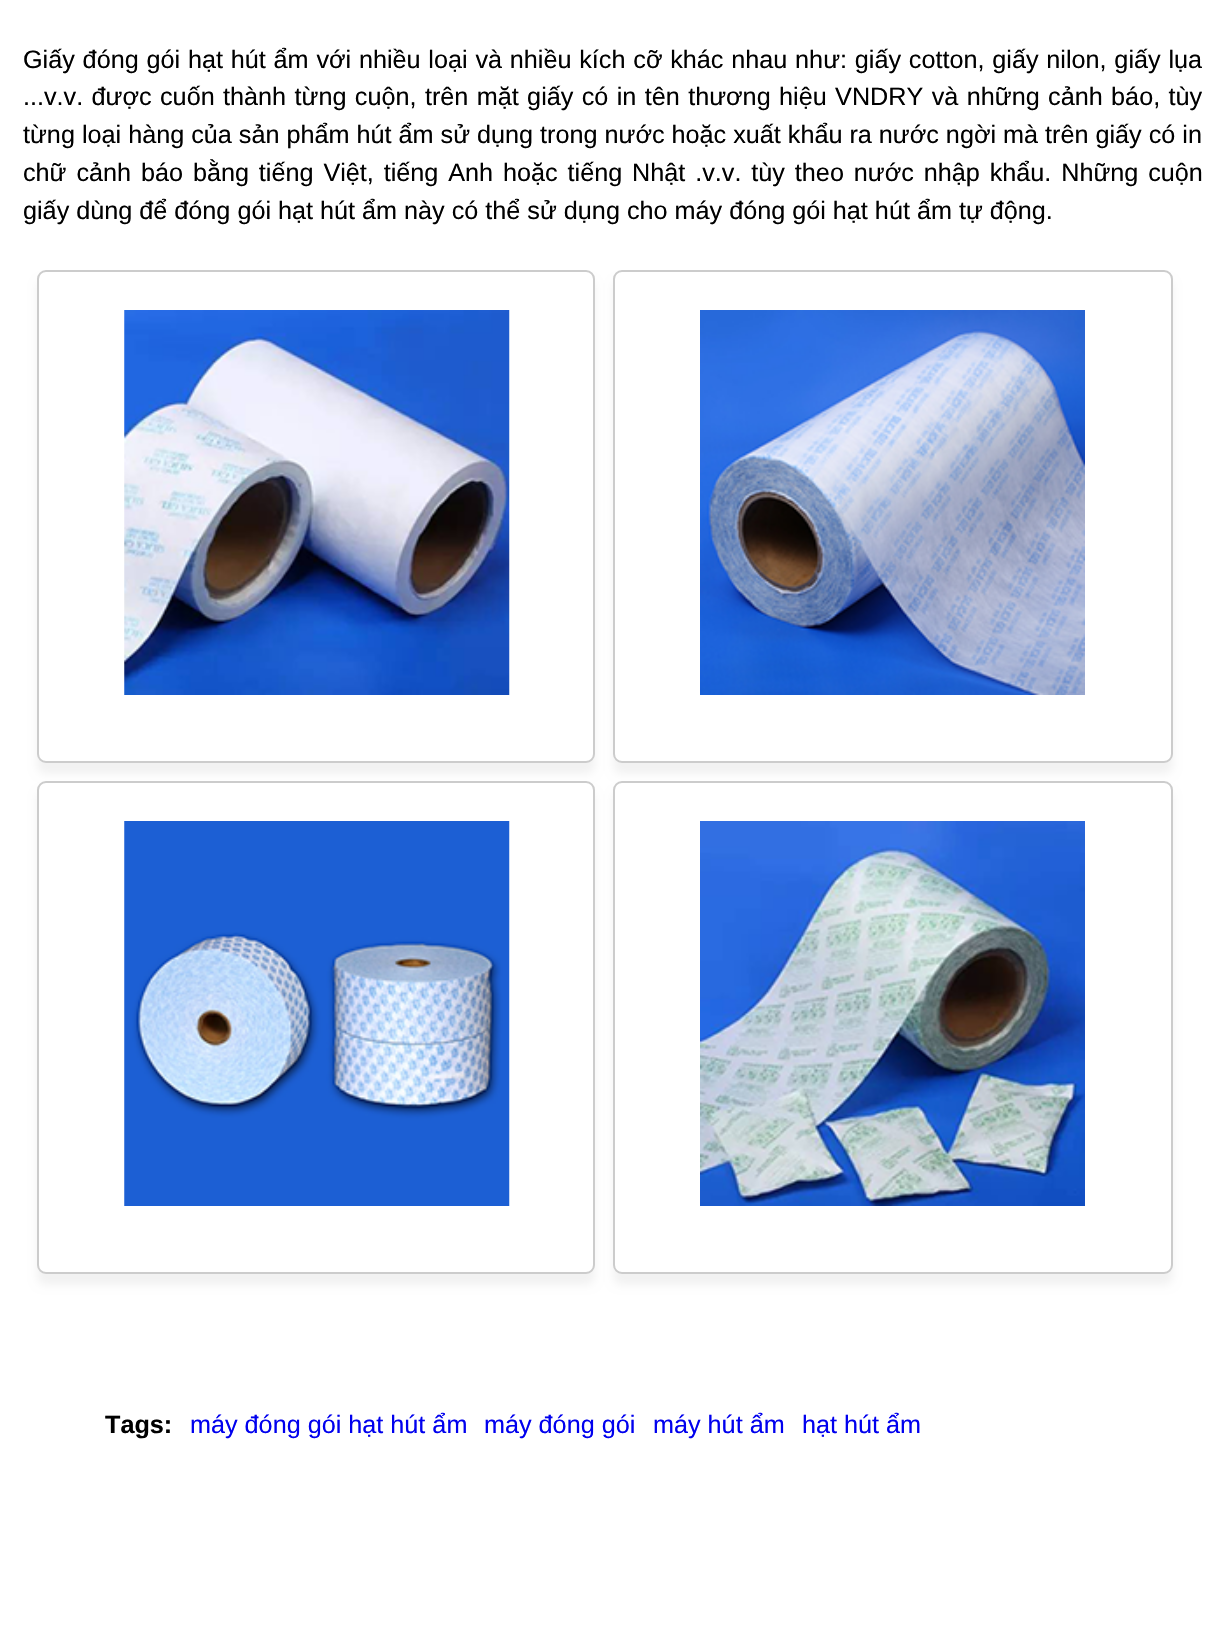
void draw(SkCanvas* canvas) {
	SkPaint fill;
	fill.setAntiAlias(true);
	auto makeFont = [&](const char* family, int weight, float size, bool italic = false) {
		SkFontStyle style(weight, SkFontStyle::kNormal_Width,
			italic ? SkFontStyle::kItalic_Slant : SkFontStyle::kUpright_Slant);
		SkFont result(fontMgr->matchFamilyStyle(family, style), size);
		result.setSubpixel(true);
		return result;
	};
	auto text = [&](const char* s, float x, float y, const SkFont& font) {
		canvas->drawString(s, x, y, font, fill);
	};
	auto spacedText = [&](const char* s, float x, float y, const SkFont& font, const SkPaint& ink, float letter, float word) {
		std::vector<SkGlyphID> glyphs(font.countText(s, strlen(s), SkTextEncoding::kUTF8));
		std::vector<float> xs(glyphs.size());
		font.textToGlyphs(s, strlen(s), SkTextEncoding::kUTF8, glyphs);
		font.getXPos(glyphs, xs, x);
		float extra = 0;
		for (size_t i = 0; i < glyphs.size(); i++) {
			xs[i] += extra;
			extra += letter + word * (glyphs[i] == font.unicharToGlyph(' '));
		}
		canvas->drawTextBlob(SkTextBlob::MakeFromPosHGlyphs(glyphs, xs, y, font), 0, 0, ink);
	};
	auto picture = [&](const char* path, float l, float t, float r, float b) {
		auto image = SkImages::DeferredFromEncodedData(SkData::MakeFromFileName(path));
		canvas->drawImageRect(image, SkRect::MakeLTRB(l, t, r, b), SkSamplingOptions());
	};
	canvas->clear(0xFFFFFFFF);
	fill.setColor(0xFFF2F2F2);
	fill.setMaskFilter(SkMaskFilter::MakeBlur(kNormal_SkBlurStyle, 4.5f));
	canvas->drawRoundRect(SkRect::MakeLTRB(37, 280, 595, 774), 9, 9, fill);
	fill.setMaskFilter(nullptr);
	fill.setColor(0xFFFFFFFF);
	canvas->drawRoundRect(SkRect::MakeLTRB(38, 271, 594, 762), 8, 8, fill);
	fill.setStyle(SkPaint::kStroke_Style);
	fill.setStrokeWidth(2);
	fill.setColor(0xFFCCCCCC);
	canvas->drawRoundRect(SkRect::MakeLTRB(38, 271, 594, 762), 8, 8, fill);
	picture("image0.png", 124, 310, 510, 695);
	fill.setStyle(SkPaint::kFill_Style);
	fill.setColor(0xFFF2F2F2);
	fill.setMaskFilter(SkMaskFilter::MakeBlur(kNormal_SkBlurStyle, 4.5f));
	canvas->drawRoundRect(SkRect::MakeLTRB(613, 280, 1173, 774), 9, 9, fill);
	fill.setMaskFilter(nullptr);
	fill.setColor(0xFFFFFFFF);
	canvas->drawRoundRect(SkRect::MakeLTRB(614, 271, 1172, 762), 8, 8, fill);
	fill.setStyle(SkPaint::kStroke_Style);
	fill.setColor(0xFFCCCCCC);
	canvas->drawRoundRect(SkRect::MakeLTRB(614, 271, 1172, 762), 8, 8, fill);
	picture("image1.png", 700, 310, 1085, 695);
	fill.setStyle(SkPaint::kFill_Style);
	fill.setColor(0xFFF2F2F2);
	fill.setMaskFilter(SkMaskFilter::MakeBlur(kNormal_SkBlurStyle, 4.5f));
	canvas->drawRoundRect(SkRect::MakeLTRB(37, 791, 595, 1285), 9, 9, fill);
	fill.setMaskFilter(nullptr);
	fill.setColor(0xFFFFFFFF);
	canvas->drawRoundRect(SkRect::MakeLTRB(38, 782, 594, 1273), 8, 8, fill);
	fill.setStyle(SkPaint::kStroke_Style);
	fill.setColor(0xFFCCCCCC);
	canvas->drawRoundRect(SkRect::MakeLTRB(38, 782, 594, 1273), 8, 8, fill);
	picture("image2.png", 124, 821, 510, 1206);
	fill.setStyle(SkPaint::kFill_Style);
	fill.setColor(0xFFF2F2F2);
	fill.setMaskFilter(SkMaskFilter::MakeBlur(kNormal_SkBlurStyle, 4.5f));
	canvas->drawRoundRect(SkRect::MakeLTRB(613, 791, 1173, 1285), 9, 9, fill);
	fill.setMaskFilter(nullptr);
	fill.setColor(0xFFFFFFFF);
	canvas->drawRoundRect(SkRect::MakeLTRB(614, 782, 1172, 1273), 8, 8, fill);
	fill.setStyle(SkPaint::kStroke_Style);
	fill.setColor(0xFFCCCCCC);
	canvas->drawRoundRect(SkRect::MakeLTRB(614, 782, 1172, 1273), 8, 8, fill);
	picture("image3.png", 700, 821, 1085, 1206);
	auto font1 = makeFont("Liberation Sans", 400, 25.2f);
	fill.setStyle(SkPaint::kFill_Style);
	fill.setColor(0xFF000000);
	spacedText("Giấy đóng gói hạt hút ẩm với nhiều loại và nhiều kích cỡ khác nhau như: giấy cotton, giấy nilon, giấy lụa", 23, 68, font1, fill, 0, 0.8f);
	spacedText("...v.v. được cuốn thành từng cuộn, trên mặt giấy có in tên thương hiệu VNDRY và những cảnh báo, tùy", 23, 105, font1, fill, 0, 1.4f);
	text("từng loại hàng của sản phẩm hút ẩm sử dụng trong nước hoặc xuất khẩu ra nước ngời mà trên giấy có in", 23, 143, font1);
	spacedText("chữ cảnh báo bằng tiếng Việt, tiếng Anh hoặc tiếng Nhật .v.v. tùy theo nước nhập khẩu. Những cuộn", 23, 181, font1, fill, 0, 2.9f);
	text("giấy dùng để đóng gói hạt hút ẩm này có thể sử dụng cho máy đóng gói hạt hút ẩm tự động.", 23, 219, font1);
	auto font2 = makeFont("Liberation Sans", 700, 25.2f);
	text("Tags:", 105, 1433, font2);
	fill.setColor(0xFF0000EE);
	text("máy đóng gói hạt hút ẩm", 190, 1433, font1);
	text("máy đóng gói", 484, 1433, font1);
	text("máy hút ẩm", 653, 1433, font1);
	text("hạt hút ẩm", 802, 1433, font1);
}
